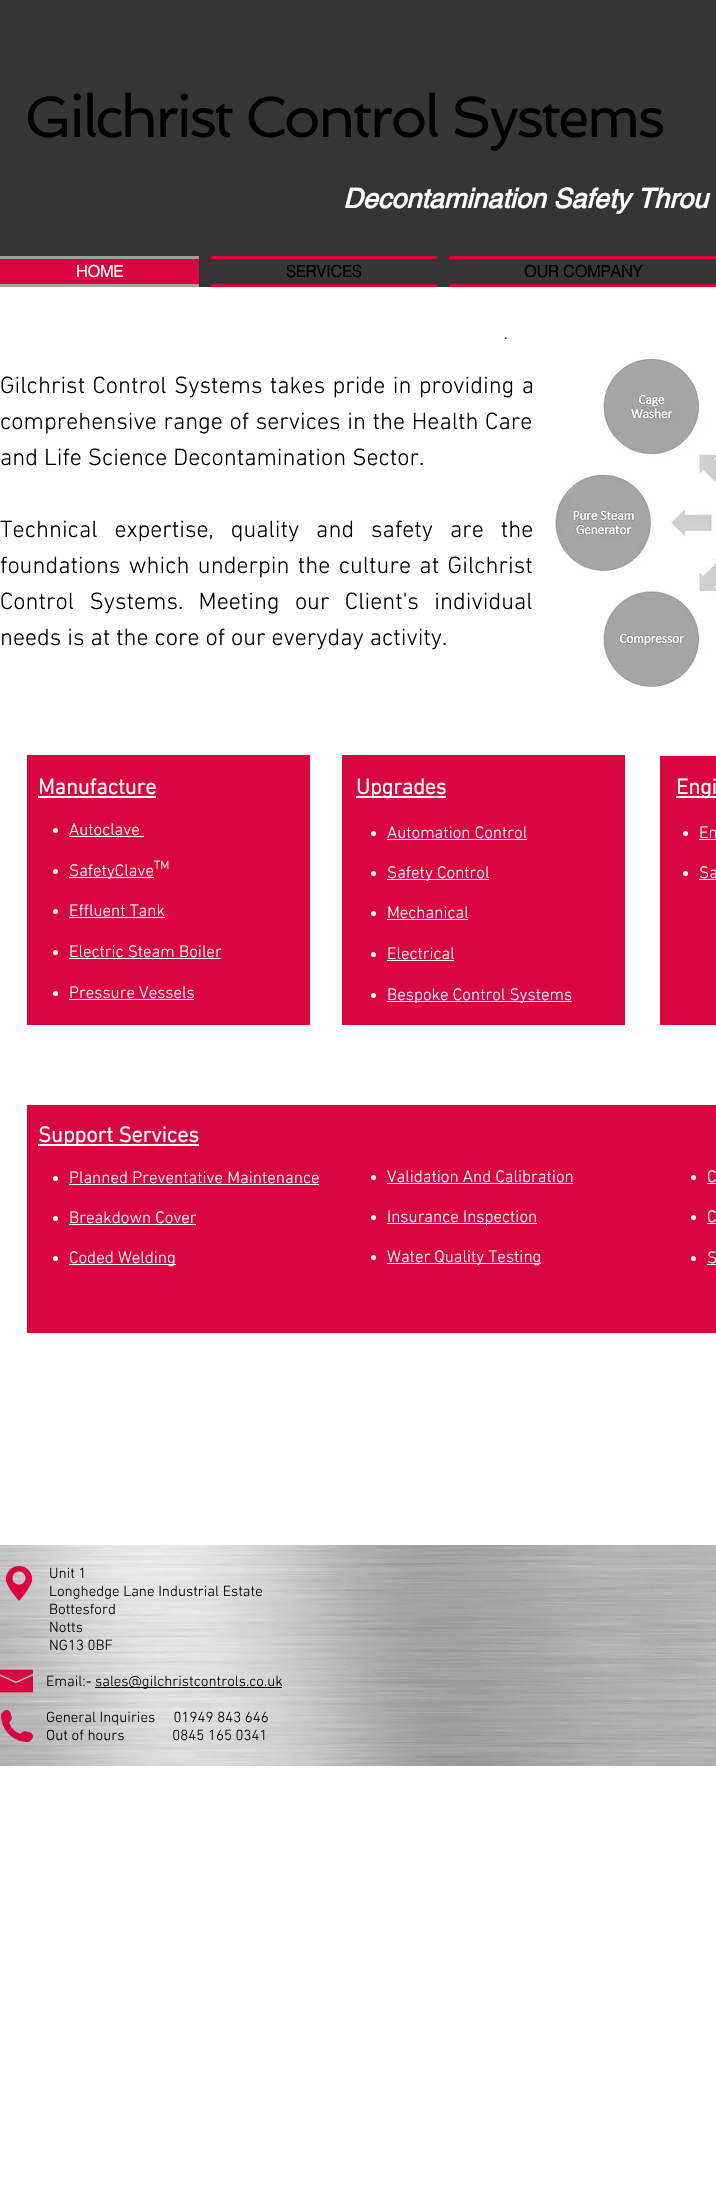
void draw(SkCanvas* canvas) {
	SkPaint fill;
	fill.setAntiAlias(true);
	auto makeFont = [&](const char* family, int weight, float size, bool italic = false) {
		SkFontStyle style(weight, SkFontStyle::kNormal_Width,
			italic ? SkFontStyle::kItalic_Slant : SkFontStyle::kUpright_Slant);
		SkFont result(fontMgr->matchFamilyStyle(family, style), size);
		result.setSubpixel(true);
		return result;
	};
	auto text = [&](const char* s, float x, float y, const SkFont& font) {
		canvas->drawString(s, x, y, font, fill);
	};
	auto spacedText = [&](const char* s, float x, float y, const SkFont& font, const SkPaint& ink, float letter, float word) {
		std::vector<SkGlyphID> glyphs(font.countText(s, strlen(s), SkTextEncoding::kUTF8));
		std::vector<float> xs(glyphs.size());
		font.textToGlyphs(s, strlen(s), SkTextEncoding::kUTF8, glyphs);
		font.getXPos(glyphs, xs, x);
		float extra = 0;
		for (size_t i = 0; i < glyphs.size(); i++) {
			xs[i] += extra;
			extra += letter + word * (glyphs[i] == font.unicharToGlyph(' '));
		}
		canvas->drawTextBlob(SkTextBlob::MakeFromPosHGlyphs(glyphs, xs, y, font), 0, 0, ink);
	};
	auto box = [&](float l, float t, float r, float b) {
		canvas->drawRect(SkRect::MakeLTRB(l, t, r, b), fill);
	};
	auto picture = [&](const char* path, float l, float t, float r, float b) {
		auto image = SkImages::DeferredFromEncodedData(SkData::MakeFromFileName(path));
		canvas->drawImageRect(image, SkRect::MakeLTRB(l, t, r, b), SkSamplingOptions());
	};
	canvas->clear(0xFFFFFFFF);
	fill.setColor(0xFF353535);
	box(0, 0, 716, 287);
	fill.setColor(0xFFD8053F);
	box(0, 259, 199, 284);
	fill.setColor(0xFFA0A09F);
	box(0, 256, 199, 259);
	box(0, 284, 199, 287);
	fill.setColor(0xFFD8053F);
	box(211, 256, 437, 259);
	box(211, 284, 437, 287);
	box(449, 256, 716, 259);
	box(449, 284, 716, 287);
	picture("image0.png", 555, 359, 716, 687);
	box(27, 755, 310, 1025);
	box(342, 755, 625, 1025);
	box(660, 756, 716, 1025);
	fill.setColor(0xFFFFFFFF);
	box(38, 796, 156, 798);
	box(356, 796, 446, 798);
	box(676, 796, 716, 798);
	canvas->drawCircle(55.5f, 830.5f, 2.5f, fill);
	box(69, 836, 144, 837);
	canvas->drawCircle(55.5f, 871.5f, 2.5f, fill);
	box(69, 877, 154, 878);
	canvas->drawCircle(55.5f, 911.5f, 2.5f, fill);
	box(69, 917, 165, 918);
	canvas->drawCircle(55.5f, 952.5f, 2.5f, fill);
	box(69, 958, 221, 959);
	canvas->drawCircle(55.5f, 993.5f, 2.5f, fill);
	box(69, 999, 194, 1000);
	canvas->drawCircle(373.5f, 833.5f, 2.5f, fill);
	box(387, 839, 527, 840);
	canvas->drawCircle(373.5f, 873.5f, 2.5f, fill);
	box(387, 879, 489, 880);
	canvas->drawCircle(373.5f, 913.5f, 2.5f, fill);
	box(387, 919, 468, 920);
	canvas->drawCircle(373.5f, 954.5f, 2.5f, fill);
	box(387, 960, 454, 961);
	canvas->drawCircle(373.5f, 995.5f, 2.5f, fill);
	box(387, 1001, 572, 1002);
	canvas->drawCircle(685.5f, 833.5f, 2.5f, fill);
	box(699, 839, 716, 840);
	canvas->drawCircle(685.5f, 873.5f, 2.5f, fill);
	box(699, 879, 716, 880);
	fill.setColor(0xFFD8053F);
	box(27, 1105, 716, 1333);
	fill.setColor(0xFFFFFFFF);
	box(38, 1144, 199, 1146);
	canvas->drawCircle(55.5f, 1178.5f, 2.5f, fill);
	box(69, 1184, 319, 1185);
	canvas->drawCircle(55.5f, 1218.5f, 2.5f, fill);
	box(69, 1224, 196, 1225);
	canvas->drawCircle(55.5f, 1258.5f, 2.5f, fill);
	box(69, 1264, 176, 1265);
	canvas->drawCircle(373.5f, 1177.5f, 2.5f, fill);
	box(387, 1183, 573, 1184);
	canvas->drawCircle(373.5f, 1217.5f, 2.5f, fill);
	box(387, 1223, 537, 1224);
	canvas->drawCircle(373.5f, 1257.5f, 2.5f, fill);
	box(387, 1263, 541, 1264);
	canvas->drawCircle(693.5f, 1177.5f, 2.5f, fill);
	box(707, 1183, 716, 1184);
	canvas->drawCircle(693.5f, 1217.5f, 2.5f, fill);
	box(707, 1223, 716, 1224);
	canvas->drawCircle(693.5f, 1258.5f, 2.5f, fill);
	box(707, 1264, 716, 1265);
	picture("image1.png", 0, 1545, 716, 1766);
	picture("image2.png", 5, 1566, 33, 1601);
	fill.setColor(0xFF000000);
	box(95, 1687, 282, 1688);
	picture("image3.png", 0, 1669, 33, 1693);
	picture("image4.png", 1, 1710, 33, 1742);
	auto font1 = makeFont("Spinnaker", 400, 58);
	spacedText("Gilchrist Control Systems", 24, 137, font1, fill, -2.9f, 0);
	auto font2 = makeFont("helvetica", 700, 27, true);
	fill.setColor(0xFFFFFFFF);
	text("Decontamination Safety Throu", 343, 208, font2);
	auto font3 = makeFont("helvetica", 700, 16);
	text("HOME", 76, 277, font3);
	fill.setColor(0xFF000000);
	text("SERVICES", 286, 277, font3);
	text("OUR COMPANY", 524, 277, font3);
	auto font4 = makeFont("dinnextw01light", 300, 17);
	text(".", 504, 339, font4);
	auto font5 = makeFont("dinnextw01light", 300, 24);
	spacedText("Gilchrist Control Systems takes pride in providing a", 0, 393, font5, fill, 0, 1.5f);
	spacedText("comprehensive range of services in the Health Care", 0, 429, font5, fill, 0, 0.75f);
	text("and Life Science Decontamination Sector.", 0, 465, font5);
	spacedText("Technical expertise, quality and safety are the", 0, 537, font5, fill, 0, 11);
	spacedText("foundations which underpin the culture at Gilchrist", 0, 573, font5, fill, 0, 2.5f);
	spacedText("Control Systems. Meeting our Client's individual", 0, 609, font5, fill, 0, 9.5f);
	text("needs is at the core of our everyday activity.", 0, 645, font5);
	auto font6 = makeFont("dinnextw01light", 700, 22);
	fill.setColor(0xFFFFFFFF);
	text("Manufacture", 38, 794, font6);
	text("Upgrades", 356, 794, font6);
	text("Engi", 676, 794, font6);
	text("Autoclave", 69, 835, font4);
	text("SafetyClave", 69, 876, font4);
	text("Effluent Tank", 69, 916, font4);
	text("Electric Steam Boiler", 69, 957, font4);
	text("Pressure Vessels", 69, 998, font4);
	text("Automation Control", 387, 838, font4);
	text("Safety Control", 387, 878, font4);
	text("Mechanical", 387, 918, font4);
	text("Electrical", 387, 959, font4);
	text("Bespoke Control Systems", 387, 1000, font4);
	text("En", 699, 838, font4);
	text("Sa", 699, 878, font4);
	auto font7 = makeFont("dinnextw01light", 300, 12);
	text("TM", 154, 869, font7);
	text("Support Services", 38, 1142, font6);
	text("Planned Preventative Maintenance", 69, 1183, font4);
	text("Breakdown Cover", 69, 1223, font4);
	text("Coded Welding", 69, 1263, font4);
	text("Validation And Calibration", 387, 1182, font4);
	text("Insurance Inspection", 387, 1222, font4);
	text("Water Quality Testing", 387, 1262, font4);
	text("C", 707, 1182, font4);
	text("C", 707, 1222, font4);
	text("S", 707, 1263, font4);
	auto font8 = makeFont("dinnextw01light", 300, 15);
	fill.setColor(0xFF000000);
	text("Unit 1", 49, 1578, font8);
	text("Longhedge Lane Industrial Estate", 49, 1596, font8);
	text("Bottesford", 49, 1614, font8);
	text("Notts", 49, 1632, font8);
	text("NG13 0BF", 49, 1650, font8);
	text("Email:-", 46, 1686, font8);
	text("sales@gilchristcontrols.co.uk", 95, 1686, font8);
	text("General Inquiries     01949 843 646", 46, 1722, font8);
	text("Out of hours             0845 165 0341", 46, 1740, font8);
}
